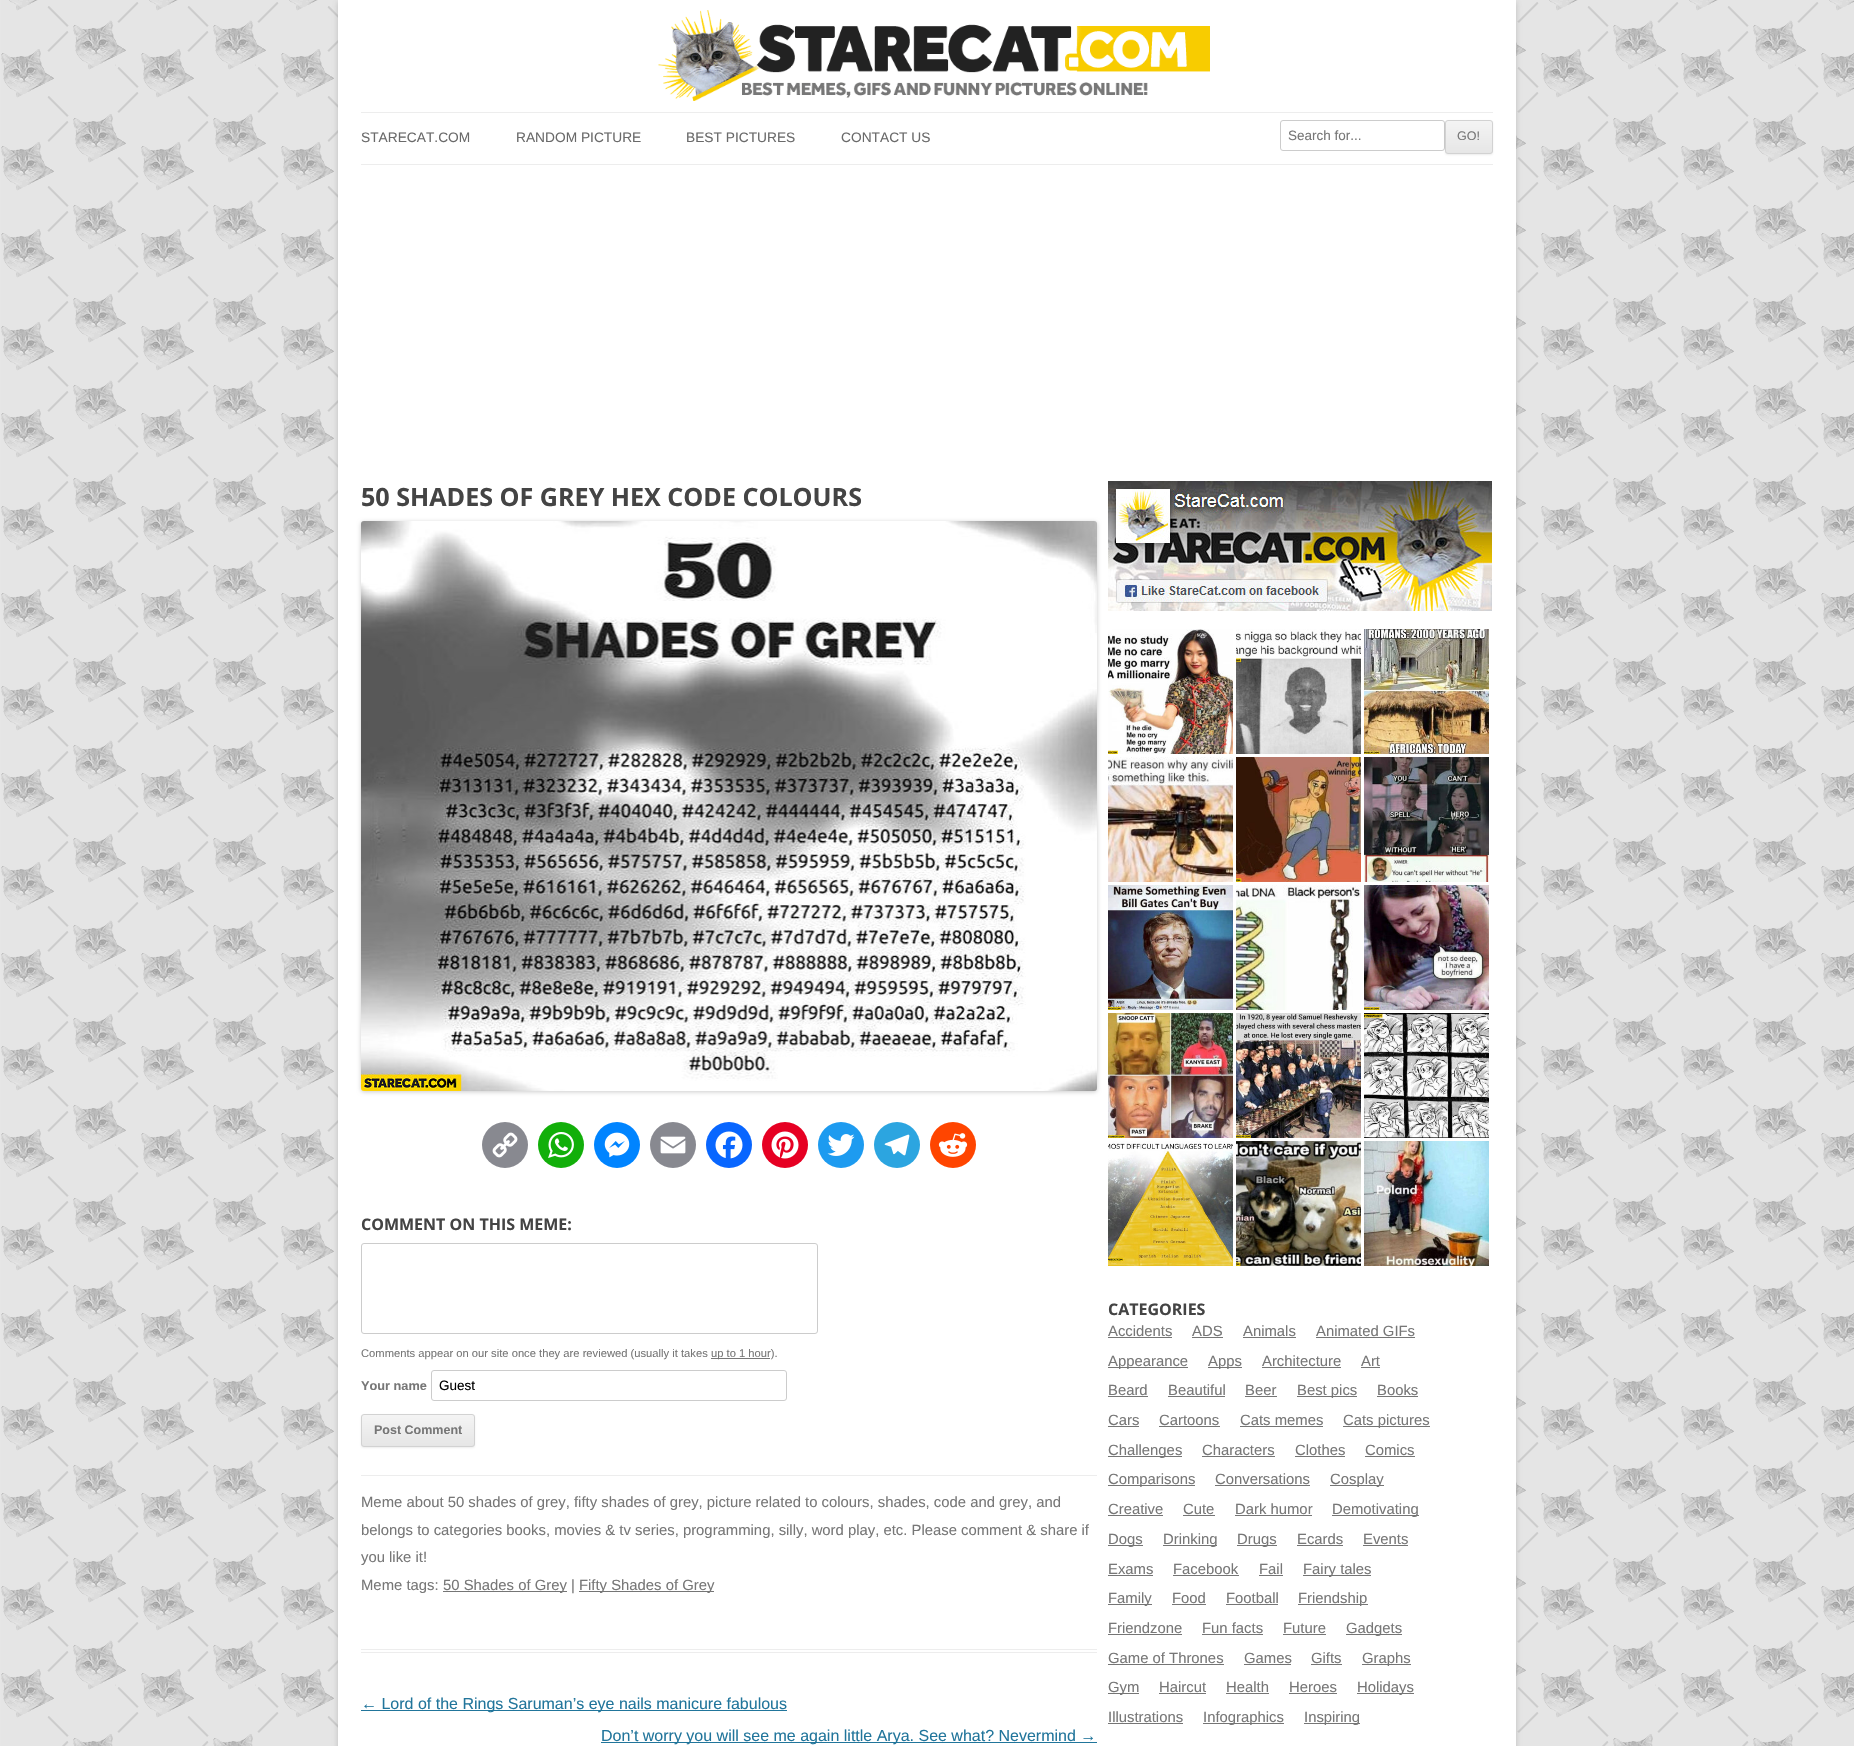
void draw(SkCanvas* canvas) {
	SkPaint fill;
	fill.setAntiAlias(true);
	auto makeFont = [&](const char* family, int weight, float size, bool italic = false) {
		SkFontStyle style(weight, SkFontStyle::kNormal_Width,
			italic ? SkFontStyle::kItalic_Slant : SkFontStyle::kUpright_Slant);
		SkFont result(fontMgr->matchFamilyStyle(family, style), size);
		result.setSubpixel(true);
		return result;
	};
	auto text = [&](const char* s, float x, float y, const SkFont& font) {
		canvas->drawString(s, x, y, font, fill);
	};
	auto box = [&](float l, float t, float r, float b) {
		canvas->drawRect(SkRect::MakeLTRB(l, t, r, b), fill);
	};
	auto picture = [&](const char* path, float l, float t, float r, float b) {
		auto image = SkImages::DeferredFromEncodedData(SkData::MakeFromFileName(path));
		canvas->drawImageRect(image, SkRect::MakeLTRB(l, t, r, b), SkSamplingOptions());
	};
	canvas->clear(0xFFE6E6E6);
	picture("image0.png", 1, 0, 1854, 1746);
	fill.setColor(0x4D646464);
	fill.setMaskFilter(SkMaskFilter::MakeBlur(kNormal_SkBlurStyle, 3));
	canvas->drawRect(SkRect::MakeLTRB(338, 2, 1516, 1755), fill);
	fill.setMaskFilter(nullptr);
	fill.setColor(0xFFFFFFFF);
	box(338, 0, 1516, 1746);
	picture("image1.png", 658, 10, 1210, 101);
	fill.setColor(0xFFEDEDED);
	box(361, 112, 1493, 113);
	box(361, 164, 1493, 165);
	fill.setStyle(SkPaint::kStroke_Style);
	fill.setStrokeWidth(1);
	fill.setColor(0xFFCCCCCC);
	canvas->drawRoundRect(SkRect::MakeLTRB(1280.5f, 120.5f, 1444.5f, 150.5f), 2.5f, 2.5f, fill);
	fill.setStyle(SkPaint::kFill_Style);
	fill.setColor(0x1A404040);
	fill.setMaskFilter(SkMaskFilter::MakeBlur(kNormal_SkBlurStyle, 1));
	canvas->drawRoundRect(SkRect::MakeLTRB(1445, 121, 1493, 155), 3, 3, fill);
	fill.setMaskFilter(nullptr);
	canvas->save();
	canvas->clipPath(SkPathBuilder().moveTo(1448, 120).lineTo(1490, 120).cubicTo(1491.5f, 120, 1493, 121.5f, 1493, 123).lineTo(1493, 151).cubicTo(1493, 152.5f, 1491.5f, 154, 1490, 154).lineTo(1448, 154).cubicTo(1446.5f, 154, 1445, 152.5f, 1445, 151).lineTo(1445, 123).cubicTo(1445, 121.5f, 1446.5f, 120, 1448, 120).close().detach(), true);
	{
		const SkColor colors[] = {0xFFF4F4F4, 0xFFE6E6E6};
		const float stops[] = {0, 1};
		const SkPoint ends[] = {{1469, 121}, {1469, 153}};
		fill.setShader(SkGradientShader::MakeLinear(ends, colors, stops, 2, SkTileMode::kClamp));
		fill.setAlpha(255);
	}
	box(1445, 121, 1493, 153);
	canvas->restore();
	fill.setStyle(SkPaint::kStroke_Style);
	fill.setShader(nullptr);
	fill.setColor(0xFFD2D2D2);
	canvas->drawRoundRect(SkRect::MakeLTRB(1445.5f, 120.5f, 1492.5f, 153.5f), 2.5f, 2.5f, fill);
	fill.setStyle(SkPaint::kFill_Style);
	fill.setColor(0xFFEDEDED);
	box(361, 1649, 1097, 1650);
	box(361, 1652, 1097, 1653);
	fill.setColor(0x33000000);
	fill.setMaskFilter(SkMaskFilter::MakeBlur(kNormal_SkBlurStyle, 2));
	canvas->drawRoundRect(SkRect::MakeLTRB(361, 522, 1097, 1092), 3, 3, fill);
	fill.setMaskFilter(nullptr);
	picture("image2.png", 361, 521, 1097, 1091);
	fill.setColor(0xFF888990);
	canvas->drawCircle(505, 1145, 23, fill);
	picture("image3.png", 492, 1132, 518, 1158);
	fill.setColor(0xFF12AF0A);
	canvas->drawCircle(561, 1145, 23, fill);
	picture("image4.png", 548, 1132, 574, 1158);
	fill.setColor(0xFF0084FF);
	canvas->drawCircle(617, 1145, 23, fill);
	picture("image5.png", 604, 1132, 630, 1158);
	fill.setColor(0xFF888990);
	canvas->drawCircle(673, 1145, 23, fill);
	picture("image6.png", 660, 1136, 686, 1154);
	fill.setColor(0xFF0866FF);
	canvas->drawCircle(729, 1145, 23, fill);
	picture("image7.png", 715, 1131, 743, 1159);
	fill.setColor(0xFFE60023);
	canvas->drawCircle(785, 1145, 23, fill);
	picture("image8.png", 771, 1131, 799, 1159);
	fill.setColor(0xFF1D9BF0);
	canvas->drawCircle(841, 1145, 23, fill);
	picture("image9.png", 827, 1134, 855, 1156);
	fill.setColor(0xFF2CA5E0);
	canvas->drawCircle(897, 1145, 23, fill);
	picture("image10.png", 884, 1134, 910, 1156);
	fill.setColor(0xFFFF4500);
	canvas->drawCircle(953, 1145, 23, fill);
	picture("image11.png", 938, 1133, 968, 1157);
	fill.setStyle(SkPaint::kStroke_Style);
	fill.setColor(0xFFCCCCCC);
	canvas->drawRoundRect(SkRect::MakeLTRB(361.5f, 1243.5f, 817.5f, 1333.5f), 2.5f, 2.5f, fill);
	fill.setStyle(SkPaint::kFill_Style);
	fill.setColor(0xFF777777);
	box(711, 1358, 770, 1359);
	fill.setStyle(SkPaint::kStroke_Style);
	fill.setColor(0xFFCCCCCC);
	canvas->drawRoundRect(SkRect::MakeLTRB(431.5f, 1370.5f, 786.5f, 1400.5f), 2.5f, 2.5f, fill);
	fill.setStyle(SkPaint::kFill_Style);
	fill.setColor(0x1A404040);
	fill.setMaskFilter(SkMaskFilter::MakeBlur(kNormal_SkBlurStyle, 1));
	canvas->drawRoundRect(SkRect::MakeLTRB(361, 1415, 475, 1448), 3, 3, fill);
	fill.setMaskFilter(nullptr);
	canvas->save();
	canvas->clipPath(SkPathBuilder().moveTo(364, 1414).lineTo(472, 1414).cubicTo(473.5f, 1414, 475, 1415.5f, 475, 1417).lineTo(475, 1444).cubicTo(475, 1445.5f, 473.5f, 1447, 472, 1447).lineTo(364, 1447).cubicTo(362.5f, 1447, 361, 1445.5f, 361, 1444).lineTo(361, 1417).cubicTo(361, 1415.5f, 362.5f, 1414, 364, 1414).close().detach(), true);
	{
		const SkColor colors[] = {0xFFF4F4F4, 0xFFE6E6E6};
		const float stops[] = {0, 1};
		const SkPoint ends[] = {{418, 1415}, {418, 1446}};
		fill.setShader(SkGradientShader::MakeLinear(ends, colors, stops, 2, SkTileMode::kClamp));
		fill.setAlpha(255);
	}
	box(361, 1415, 475, 1446);
	canvas->restore();
	fill.setStyle(SkPaint::kStroke_Style);
	fill.setShader(nullptr);
	fill.setColor(0xFFD2D2D2);
	canvas->drawRoundRect(SkRect::MakeLTRB(361.5f, 1414.5f, 474.5f, 1446.5f), 2.5f, 2.5f, fill);
	fill.setStyle(SkPaint::kFill_Style);
	fill.setColor(0xFFEDEDED);
	box(361, 1475, 1097, 1476);
	fill.setColor(0xFF757575);
	box(443, 1591, 567, 1592);
	box(579, 1591, 714, 1592);
	fill.setColor(0xFF21759B);
	box(361, 1710, 787, 1711);
	box(601, 1742, 1097, 1743);
	picture("image12.png", 1108, 481, 1492, 611);
	picture("image13.png", 1108, 629, 1233, 754);
	picture("image14.png", 1236, 629, 1361, 754);
	picture("image15.png", 1364, 629, 1489, 754);
	picture("image16.png", 1108, 757, 1233, 882);
	picture("image17.png", 1236, 757, 1361, 882);
	picture("image18.png", 1364, 757, 1489, 882);
	picture("image19.png", 1108, 885, 1233, 1010);
	picture("image20.png", 1236, 885, 1361, 1010);
	picture("image21.png", 1364, 885, 1489, 1010);
	picture("image22.png", 1108, 1013, 1233, 1138);
	picture("image23.png", 1236, 1013, 1361, 1138);
	picture("image24.png", 1364, 1013, 1489, 1138);
	picture("image25.png", 1108, 1141, 1233, 1266);
	picture("image26.png", 1236, 1141, 1361, 1266);
	picture("image27.png", 1364, 1141, 1489, 1266);
	fill.setColor(0xFF757575);
	box(1108, 1337, 1172, 1338);
	box(1192, 1337, 1223, 1338);
	box(1243, 1337, 1296, 1338);
	box(1316, 1337, 1415, 1338);
	box(1108, 1367, 1188, 1368);
	box(1208, 1367, 1242, 1368);
	box(1262, 1367, 1341, 1368);
	box(1361, 1367, 1380, 1368);
	box(1108, 1396, 1148, 1397);
	box(1168, 1396, 1225, 1397);
	box(1245, 1396, 1277, 1397);
	box(1297, 1396, 1357, 1397);
	box(1377, 1396, 1418, 1397);
	box(1108, 1426, 1139, 1427);
	box(1159, 1426, 1220, 1427);
	box(1240, 1426, 1323, 1427);
	box(1343, 1426, 1430, 1427);
	box(1108, 1456, 1182, 1457);
	box(1202, 1456, 1275, 1457);
	box(1295, 1456, 1345, 1457);
	box(1365, 1456, 1415, 1457);
	box(1108, 1485, 1195, 1486);
	box(1215, 1485, 1310, 1486);
	box(1330, 1485, 1384, 1486);
	box(1108, 1515, 1163, 1516);
	box(1183, 1515, 1215, 1516);
	box(1235, 1515, 1312, 1516);
	box(1332, 1515, 1419, 1516);
	box(1108, 1545, 1143, 1546);
	box(1163, 1545, 1217, 1546);
	box(1237, 1545, 1277, 1546);
	box(1297, 1545, 1343, 1546);
	box(1363, 1545, 1408, 1546);
	box(1108, 1575, 1153, 1576);
	box(1173, 1575, 1239, 1576);
	box(1259, 1575, 1283, 1576);
	box(1303, 1575, 1371, 1576);
	box(1108, 1604, 1152, 1605);
	box(1172, 1604, 1206, 1605);
	box(1226, 1604, 1278, 1605);
	box(1298, 1604, 1368, 1605);
	box(1108, 1634, 1182, 1635);
	box(1202, 1634, 1263, 1635);
	box(1283, 1634, 1326, 1635);
	box(1346, 1634, 1402, 1635);
	box(1108, 1664, 1224, 1665);
	box(1244, 1664, 1291, 1665);
	box(1311, 1664, 1342, 1665);
	box(1362, 1664, 1411, 1665);
	box(1108, 1693, 1139, 1694);
	box(1159, 1693, 1206, 1694);
	box(1226, 1693, 1269, 1694);
	box(1289, 1693, 1337, 1694);
	box(1357, 1693, 1414, 1694);
	box(1108, 1723, 1183, 1724);
	box(1203, 1723, 1284, 1724);
	box(1304, 1723, 1360, 1724);
	auto font1 = makeFont("Liberation Sans", 400, 13.75f);
	fill.setColor(0xFF6A6A6A);
	text("STARECAT.COM", 361, 142, font1);
	text("RANDOM PICTURE", 516, 142, font1);
	text("BEST PICTURES", 686, 142, font1);
	text("CONTACT US", 841, 142, font1);
	auto font2 = makeFont("Liberation Sans", 400, 13.5f);
	fill.setColor(0xFF777777);
	text("Search for...", 1288, 140, font2);
	auto font3 = makeFont("Liberation Sans", 400, 12.5f);
	text("GO!", 1457, 140, font3);
	auto font4 = makeFont("Open Sans", 700, 25.1f);
	fill.setColor(0xFF444444);
	text("50 SHADES OF GREY HEX CODE COLOURS", 361, 506, font4);
	auto font5 = makeFont("Open Sans", 700, 16);
	text("COMMENT ON THIS MEME:", 361, 1230, font5);
	auto font6 = makeFont("Liberation Sans", 400, 11.2f);
	fill.setColor(0xFF777777);
	text("Comments appear on our site once they are reviewed (usually it takes", 361, 1357, font6);
	text("up to 1 hour).", 711, 1357, font6);
	auto font7 = makeFont("Liberation Sans", 700, 12.75f);
	text("Your name", 361, 1390, font7);
	fill.setColor(0xFF000000);
	text("Guest", 439, 1390, font2);
	auto font8 = makeFont("Liberation Sans", 700, 12.5f);
	fill.setColor(0xFF777777);
	text("Post Comment", 374, 1434, font8);
	auto font9 = makeFont("Liberation Sans", 400, 14.85f);
	text("Meme about 50 shades of grey, fifty shades of grey, picture related to colours, shades, code and grey, and", 361, 1507, font9);
	text("belongs to categories books, movies & tv series, programming, silly, word play, etc. Please comment & share if", 361, 1535, font9);
	text("you like it!", 361, 1562, font9);
	text("Meme tags:", 361, 1590, font9);
	text("50 Shades of Grey |", 443, 1590, font9);
	text("Fifty Shades of Grey", 579, 1590, font9);
	auto font10 = makeFont("Liberation Sans", 400, 16);
	fill.setColor(0xFF21759B);
	text("← Lord of the Rings Saruman’s eye nails manicure fabulous", 361, 1709, font10);
	text("Don’t worry you will see me again little Arya. See what? Nevermind →", 601, 1741, font10);
	fill.setColor(0xFF444444);
	text("CATEGORIES", 1108, 1315, font5);
	fill.setColor(0xFF777777);
	text("Accidents", 1108, 1336, font9);
	text("ADS", 1192, 1336, font9);
	text("Animals", 1243, 1336, font9);
	text("Animated GIFs", 1316, 1336, font9);
	text("Appearance", 1108, 1366, font9);
	text("Apps", 1208, 1366, font9);
	text("Architecture", 1262, 1366, font9);
	text("Art", 1361, 1366, font9);
	text("Beard", 1108, 1395, font9);
	text("Beautiful", 1168, 1395, font9);
	text("Beer", 1245, 1395, font9);
	text("Best pics", 1297, 1395, font9);
	text("Books", 1377, 1395, font9);
	text("Cars", 1108, 1425, font9);
	text("Cartoons", 1159, 1425, font9);
	text("Cats memes", 1240, 1425, font9);
	text("Cats pictures", 1343, 1425, font9);
	text("Challenges", 1108, 1455, font9);
	text("Characters", 1202, 1455, font9);
	text("Clothes", 1295, 1455, font9);
	text("Comics", 1365, 1455, font9);
	text("Comparisons", 1108, 1484, font9);
	text("Conversations", 1215, 1484, font9);
	text("Cosplay", 1330, 1484, font9);
	text("Creative", 1108, 1514, font9);
	text("Cute", 1183, 1514, font9);
	text("Dark humor", 1235, 1514, font9);
	text("Demotivating", 1332, 1514, font9);
	text("Dogs", 1108, 1544, font9);
	text("Drinking", 1163, 1544, font9);
	text("Drugs", 1237, 1544, font9);
	text("Ecards", 1297, 1544, font9);
	text("Events", 1363, 1544, font9);
	text("Exams", 1108, 1574, font9);
	text("Facebook", 1173, 1574, font9);
	text("Fail", 1259, 1574, font9);
	text("Fairy tales", 1303, 1574, font9);
	text("Family", 1108, 1603, font9);
	text("Food", 1172, 1603, font9);
	text("Football", 1226, 1603, font9);
	text("Friendship", 1298, 1603, font9);
	text("Friendzone", 1108, 1633, font9);
	text("Fun facts", 1202, 1633, font9);
	text("Future", 1283, 1633, font9);
	text("Gadgets", 1346, 1633, font9);
	text("Game of Thrones", 1108, 1663, font9);
	text("Games", 1244, 1663, font9);
	text("Gifts", 1311, 1663, font9);
	text("Graphs", 1362, 1663, font9);
	text("Gym", 1108, 1692, font9);
	text("Haircut", 1159, 1692, font9);
	text("Health", 1226, 1692, font9);
	text("Heroes", 1289, 1692, font9);
	text("Holidays", 1357, 1692, font9);
	text("Illustrations", 1108, 1722, font9);
	text("Infographics", 1203, 1722, font9);
	text("Inspiring", 1304, 1722, font9);
}
